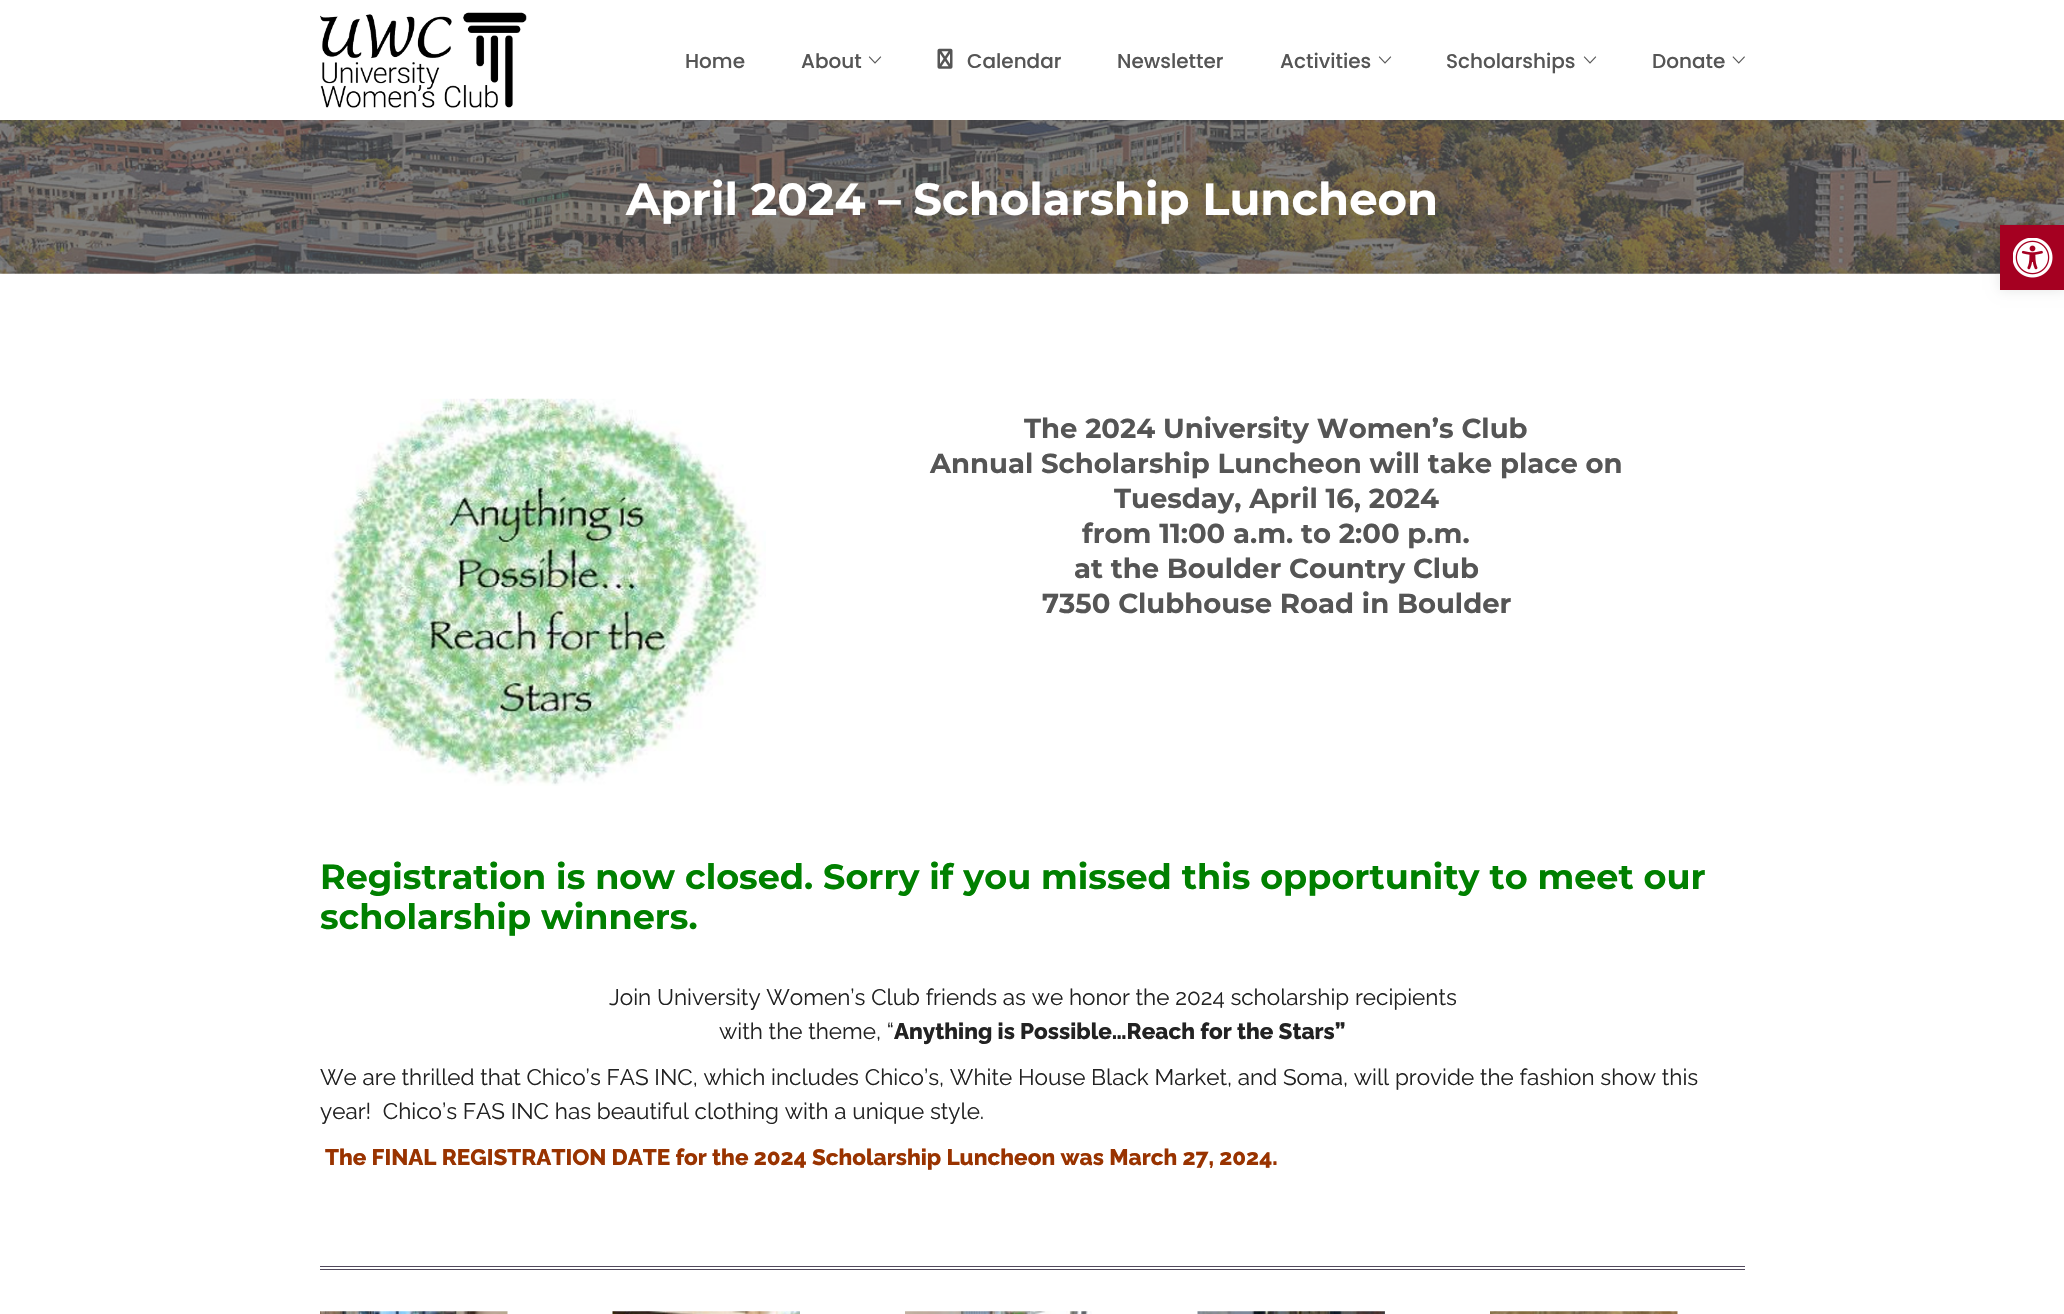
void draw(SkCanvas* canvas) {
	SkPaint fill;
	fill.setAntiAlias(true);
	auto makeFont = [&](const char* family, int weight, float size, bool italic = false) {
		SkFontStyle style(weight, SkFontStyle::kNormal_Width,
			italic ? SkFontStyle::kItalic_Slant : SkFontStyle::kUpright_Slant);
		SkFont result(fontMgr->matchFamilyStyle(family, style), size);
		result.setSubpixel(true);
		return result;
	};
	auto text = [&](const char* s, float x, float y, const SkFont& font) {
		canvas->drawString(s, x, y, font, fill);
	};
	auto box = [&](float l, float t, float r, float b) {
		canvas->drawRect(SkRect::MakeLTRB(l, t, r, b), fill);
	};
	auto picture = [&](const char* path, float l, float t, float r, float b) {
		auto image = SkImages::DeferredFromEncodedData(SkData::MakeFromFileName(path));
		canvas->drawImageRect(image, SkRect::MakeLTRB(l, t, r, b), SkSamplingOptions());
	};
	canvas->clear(0xFFFFFFFF);
	picture("image0.png", 320, 12, 527, 108);
	picture("image1.png", 868, 56, 882, 64);
	picture("image2.png", 937, 48, 953, 69);
	picture("image1.png", 1378, 56, 1392, 64);
	picture("image1.png", 1583, 56, 1597, 64);
	picture("image3.png", 1732, 56, 1745, 64);
	picture("image4.png", 0, 120, 2064, 274);
	picture("image5.png", 325, 398, 766, 786);
	fill.setColor(0xFF50485B);
	box(320, 1266, 1745, 1267);
	box(320, 1269, 1745, 1270);
	picture("image6.png", 320, 1311, 508, 1314);
	picture("image7.png", 612, 1311, 800, 1314);
	picture("image8.png", 905, 1311, 1092, 1314);
	picture("image9.png", 1197, 1311, 1385, 1314);
	picture("image10.png", 1490, 1311, 1678, 1314);
	fill.setColor(0x1A000000);
	fill.setMaskFilter(SkMaskFilter::MakeBlur(kNormal_SkBlurStyle, 6));
	canvas->drawRect(SkRect::MakeLTRB(2000, 225, 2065, 290), fill);
	fill.setMaskFilter(nullptr);
	fill.setColor(0xFFA50021);
	box(2000, 225, 2064, 290);
	picture("image11.png", 2013, 238, 2053, 278);
	auto font1 = makeFont("Poppins", 500, 20);
	fill.setColor(0xFF555555);
	text("Home", 685, 68, font1);
	text("About", 801, 68, font1);
	text("Calendar", 967, 68, font1);
	text("Newsletter", 1117, 68, font1);
	text("Activities", 1280, 68, font1);
	text("Scholarships", 1446, 68, font1);
	text("Donate", 1652, 68, font1);
	auto font2 = makeFont("Montserrat", 700, 45);
	fill.setColor(0xFFFFFFFF);
	text("April 2024 – Scholarship Luncheon", 626, 215, font2);
	auto font3 = makeFont("Montserrat", 700, 27.5f);
	fill.setColor(0xFF555555);
	text("The 2024 University Women’s Club", 1024, 438, font3);
	text("Annual Scholarship Luncheon will take place on", 930, 473, font3);
	text("Tuesday, April 16, 2024", 1114, 508, font3);
	text("from 11:00 a.m. to 2:00 p.m.", 1082, 543, font3);
	text("at the Boulder Country Club", 1074, 578, font3);
	text("7350 Clubhouse Road in Boulder", 1042, 613, font3);
	auto font4 = makeFont("Montserrat", 700, 35);
	fill.setColor(0xFF008000);
	text("Registration is now closed. Sorry if you missed this opportunity to meet our", 320, 889, font4);
	text("scholarship winners.", 320, 929, font4);
	auto font5 = makeFont("Raleway", 100, 22.5f);
	fill.setColor(0xFF222222);
	text("Join University Women’s Club friends as we honor the 2024 scholarship recipients", 609, 1005, font5);
	text("with the theme, “", 719, 1039, font5);
	auto font6 = makeFont("Raleway", 800, 22.5f);
	text("Anything is Possible…Reach for the Stars”", 894, 1039, font6);
	text("We are thrilled that Chico’s FAS INC, which includes Chico’s, White House Black Market, and Soma, will provide the fashion show this", 320, 1085, font5);
	text("year!  Chico’s FAS INC has beautiful clothing with a unique style.", 320, 1119, font5);
	fill.setColor(0xFF993300);
	text("The FINAL REGISTRATION DATE for the 2024 Scholarship Luncheon was March 27, 2024.", 325, 1165, font6);
}
